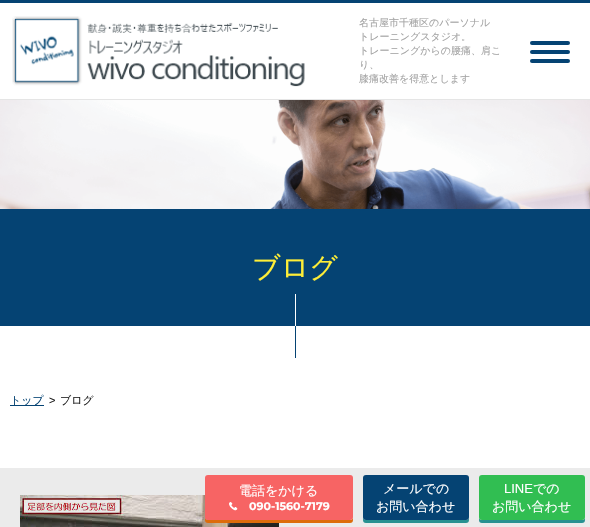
void draw(SkCanvas* canvas) {
	SkPaint fill;
	fill.setAntiAlias(true);
	auto makeFont = [&](const char* family, int weight, float size, bool italic = false) {
		SkFontStyle style(weight, SkFontStyle::kNormal_Width,
			italic ? SkFontStyle::kItalic_Slant : SkFontStyle::kUpright_Slant);
		SkFont result(fontMgr->matchFamilyStyle(family, style), size);
		result.setSubpixel(true);
		return result;
	};
	auto text = [&](const char* s, float x, float y, const SkFont& font) {
		canvas->drawString(s, x, y, font, fill);
	};
	auto box = [&](float l, float t, float r, float b) {
		canvas->drawRect(SkRect::MakeLTRB(l, t, r, b), fill);
	};
	auto roundBox = [&](float l, float t, float r, float b, float radius) {
		canvas->drawRoundRect(SkRect::MakeLTRB(l, t, r, b), radius, radius, fill);
	};
	auto picture = [&](const char* path, float l, float t, float r, float b) {
		auto image = SkImages::DeferredFromEncodedData(SkData::MakeFromFileName(path));
		canvas->drawImageRect(image, SkRect::MakeLTRB(l, t, r, b), SkSamplingOptions());
	};
	canvas->clear(0xFFFFFFFF);
	fill.setColor(0xFFEBEBEB);
	box(0, 468, 590, 527);
	fill.setColor(0xFF054373);
	box(0, 0, 590, 3);
	fill.setColor(0xFFE5E5E5);
	box(0, 99, 590, 100);
	picture("image0.png", 12, 16, 305, 87);
	fill.setColor(0xFF054373);
	roundBox(530, 41, 570, 45, 2);
	roundBox(530, 50, 570, 54, 2);
	roundBox(530, 59, 570, 63, 2);
	picture("image1.png", 0, 100, 590, 209);
	box(0, 209, 590, 326);
	fill.setColor(0xFFFFFFFF);
	box(295, 294, 296, 326);
	fill.setColor(0xFF054373);
	box(295, 326, 296, 358);
	box(10, 405, 44, 406);
	picture("image2.png", 20, 495, 279, 527);
	fill.setColor(0xFFDD6C0B);
	canvas->drawPath(SkPathBuilder().moveTo(205, 517).lineTo(205, 520).cubicTo(205, 522, 206, 523, 208, 523).lineTo(350, 523).cubicTo(352, 523, 353, 522, 353, 520).lineTo(353, 517).cubicTo(353, 519, 352, 520, 350, 520).lineTo(208, 520).cubicTo(206, 520, 205, 519, 205, 517).close().detach(), fill);
	fill.setColor(0xFFF76464);
	roundBox(205, 475, 353, 520, 3);
	picture("image3.png", 229, 502, 238, 511);
	fill.setColor(0xFF289191);
	canvas->drawPath(SkPathBuilder().moveTo(363, 517).lineTo(363, 520).cubicTo(363, 522, 364, 523, 366, 523).lineTo(466, 523).cubicTo(468, 523, 469, 522, 469, 520).lineTo(469, 517).cubicTo(469, 519, 468, 520, 466, 520).lineTo(366, 520).cubicTo(364, 520, 363, 519, 363, 517).close().detach(), fill);
	fill.setColor(0xFF054373);
	roundBox(363, 475, 469, 520, 3);
	fill.setColor(0xFF289191);
	canvas->drawPath(SkPathBuilder().moveTo(479, 517).lineTo(479, 520).cubicTo(479, 522, 480, 523, 482, 523).lineTo(582, 523).cubicTo(584, 523, 585, 522, 585, 520).lineTo(585, 517).cubicTo(585, 519, 584, 520, 582, 520).lineTo(482, 520).cubicTo(480, 520, 479, 519, 479, 517).close().detach(), fill);
	fill.setColor(0xFF31BE52);
	roundBox(479, 475, 585, 520, 3);
	auto font1 = makeFont("WenQuanYi Zen Hei", 500, 10);
	fill.setColor(0xFFA3A3A3);
	text("名古屋市千種区のパーソナル", 359, 26, font1);
	text("トレーニングスタジオ。", 359, 40, font1);
	text("トレーニングからの腰痛、肩こ", 359, 54, font1);
	text("り、", 359, 68, font1);
	text("膝痛改善を得意とします", 359, 82, font1);
	auto font2 = makeFont("WenQuanYi Zen Hei", 500, 28);
	fill.setColor(0xFFFFEE37);
	text("ブログ", 252, 277, font2);
	auto font3 = makeFont("WenQuanYi Zen Hei", 500, 11);
	fill.setColor(0xFF054373);
	text("トップ", 10, 404, font3);
	auto font4 = makeFont("Liberation Sans", 400, 11);
	fill.setColor(0xFF222222);
	text(">", 49, 404, font4);
	text("ブログ", 60, 404, font3);
	auto font5 = makeFont("WenQuanYi Zen Hei", 500, 13);
	fill.setColor(0xFFFFFFFF);
	text("電話をかける", 239, 495, font5);
	auto font6 = makeFont("Montserrat", 700, 11);
	text("090-1560-7179", 249, 510, font6);
	text("メールでの", 383, 493, font5);
	text("お問い合わせ", 376, 511, font5);
	auto font7 = makeFont("Liberation Sans", 400, 13);
	text("LINE", 504, 493, font7);
	text("での", 533, 493, font5);
	text("お問い合わせ", 492, 511, font5);
}
